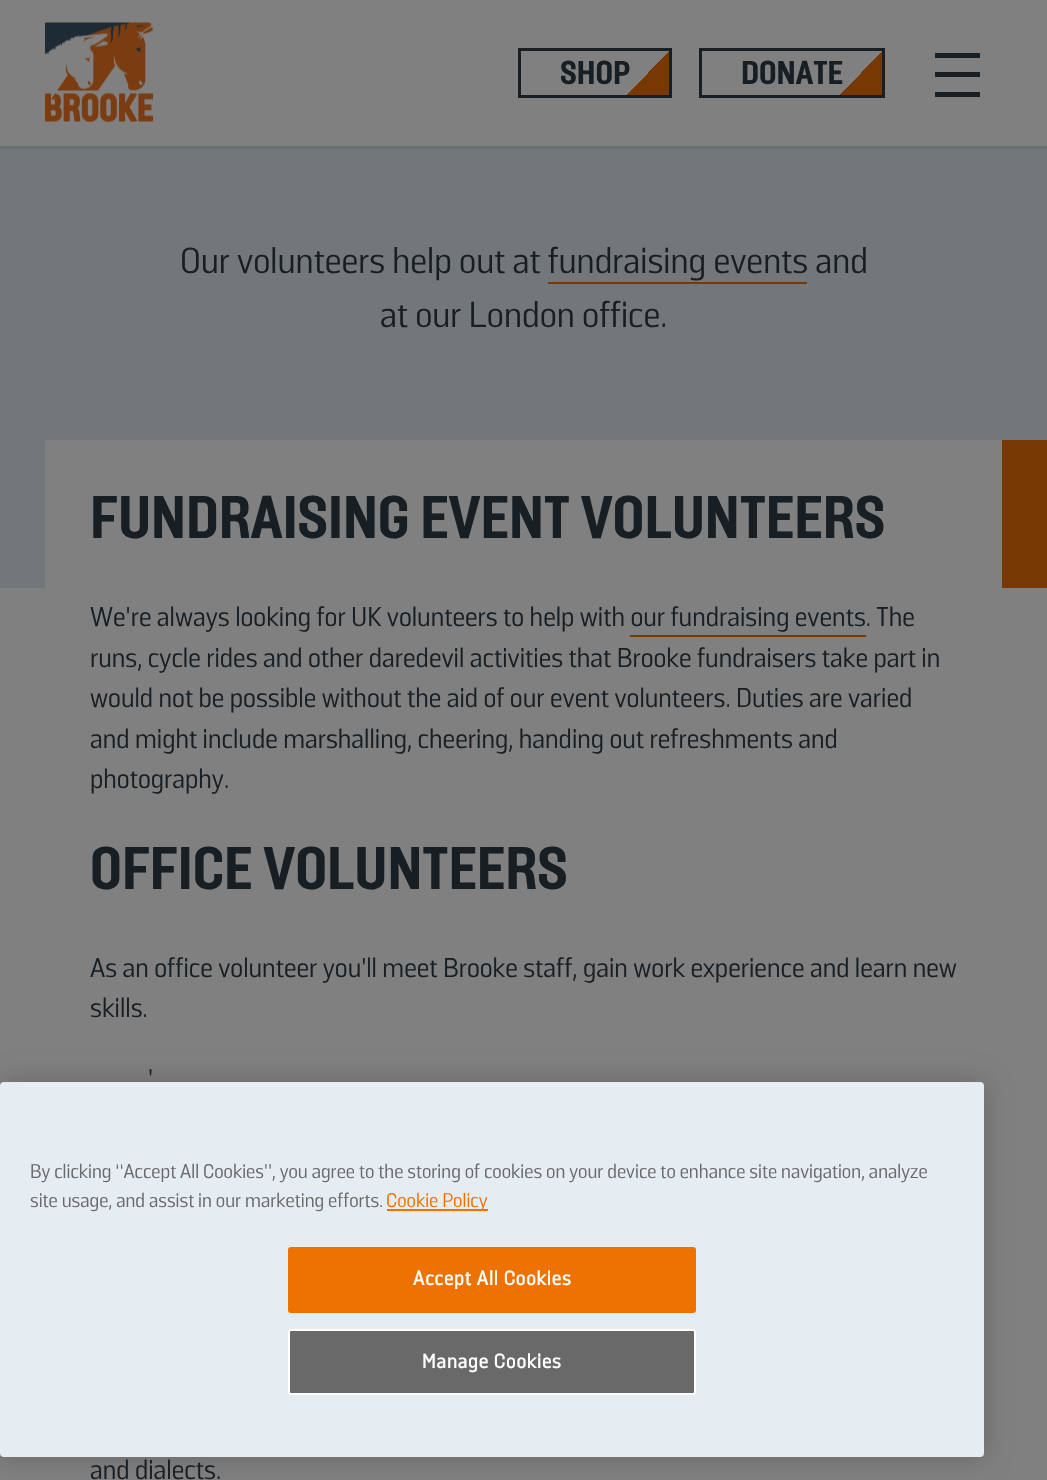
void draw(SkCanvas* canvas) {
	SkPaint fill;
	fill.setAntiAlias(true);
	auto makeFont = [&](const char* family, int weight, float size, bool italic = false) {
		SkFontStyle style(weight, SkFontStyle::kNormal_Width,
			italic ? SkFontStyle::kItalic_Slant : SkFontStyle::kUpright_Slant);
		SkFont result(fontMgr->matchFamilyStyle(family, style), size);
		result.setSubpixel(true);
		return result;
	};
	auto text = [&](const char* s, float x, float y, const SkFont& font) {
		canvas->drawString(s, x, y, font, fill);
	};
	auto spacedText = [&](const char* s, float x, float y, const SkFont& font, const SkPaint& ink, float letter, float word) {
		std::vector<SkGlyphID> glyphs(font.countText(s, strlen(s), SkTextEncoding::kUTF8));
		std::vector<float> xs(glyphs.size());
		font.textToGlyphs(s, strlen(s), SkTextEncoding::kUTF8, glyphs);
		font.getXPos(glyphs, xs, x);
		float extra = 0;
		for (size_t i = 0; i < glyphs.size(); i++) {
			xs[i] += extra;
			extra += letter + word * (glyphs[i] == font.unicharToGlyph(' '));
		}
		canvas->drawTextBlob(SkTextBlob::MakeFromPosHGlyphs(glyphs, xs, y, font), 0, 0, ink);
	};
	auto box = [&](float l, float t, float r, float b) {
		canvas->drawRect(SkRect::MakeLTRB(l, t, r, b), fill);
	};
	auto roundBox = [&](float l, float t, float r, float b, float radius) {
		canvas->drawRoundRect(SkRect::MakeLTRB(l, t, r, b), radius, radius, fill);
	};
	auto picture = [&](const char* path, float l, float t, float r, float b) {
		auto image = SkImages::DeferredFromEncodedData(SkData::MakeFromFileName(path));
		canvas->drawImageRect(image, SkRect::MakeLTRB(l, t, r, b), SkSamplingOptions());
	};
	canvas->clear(0xFF737779);
	fill.setColor(0x1A242E37);
	box(0, 146, 1047, 149);
	fill.setColor(0xFF808080);
	box(0, 0, 1047, 146);
	picture("image0.png", 45, 22, 154, 123);
	{
		const SkColor colors[] = {0xFF808080, 0xFF773901};
		const float stops[] = {0.5f, 0.5f};
		const SkPoint ends[] = {{626, 52}, {670, 94}};
		fill.setShader(SkGradientShader::MakeLinear(ends, colors, stops, 2, SkTileMode::kClamp));
		fill.setAlpha(255);
	}
	box(627, 52, 669, 95);
	fill.setStyle(SkPaint::kStroke_Style);
	fill.setStrokeWidth(3);
	fill.setShader(nullptr);
	fill.setColor(0xFF181F24);
	canvas->drawRect(SkRect::MakeLTRB(519.5f, 49.5f, 670.5f, 96.5f), fill);
	fill.setStyle(SkPaint::kFill_Style);
	{
		const SkColor colors[] = {0xFF808080, 0xFF773901};
		const float stops[] = {0.5f, 0.5f};
		const SkPoint ends[] = {{839, 52}, {883, 94}};
		fill.setShader(SkGradientShader::MakeLinear(ends, colors, stops, 2, SkTileMode::kClamp));
		fill.setAlpha(255);
	}
	box(840, 52, 882, 95);
	fill.setStyle(SkPaint::kStroke_Style);
	fill.setShader(nullptr);
	fill.setColor(0xFF181F24);
	canvas->drawRect(SkRect::MakeLTRB(700.5f, 49.5f, 883.5f, 96.5f), fill);
	fill.setStyle(SkPaint::kFill_Style);
	box(935, 72, 980, 77);
	box(935, 53, 980, 58);
	box(935, 92, 980, 97);
	fill.setColor(0xFF773901);
	canvas->drawPath(SkPathBuilder().moveTo(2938, -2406).lineTo(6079, -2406).lineTo(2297, 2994).lineTo(-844, 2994).close().detach(), fill);
	fill.setColor(0xFF737779);
	box(944, 294, 1047, 440);
	fill.setColor(0xFF773901);
	box(548, 282, 807, 284);
	fill.setColor(0xFF808080);
	box(45, 440, 1002, 588);
	box(0, 588, 1047, 1480);
	fill.setColor(0xFF773901);
	box(630, 635, 866, 637);
	fill.setColor(0x33000000);
	fill.setMaskFilter(SkMaskFilter::MakeBlur(kNormal_SkBlurStyle, 13.5f));
	canvas->drawRoundRect(SkRect::MakeLTRB(0, 1082, 984, 1457), 4, 4, fill);
	fill.setMaskFilter(nullptr);
	fill.setColor(0xFFE6EDF2);
	roundBox(0, 1082, 984, 1457, 4);
	fill.setColor(0xFFEE7202);
	box(387, 1209, 488, 1211);
	canvas->drawRoundRect(SkRect::MakeLTRB(289, 1248, 695, 1312), 2, 2, fill);
	fill.setStyle(SkPaint::kStroke_Style);
	fill.setStrokeWidth(2);
	canvas->drawRoundRect(SkRect::MakeLTRB(289, 1248, 695, 1312), 2, 2, fill);
	fill.setStyle(SkPaint::kFill_Style);
	fill.setColor(0xFF696969);
	canvas->drawRoundRect(SkRect::MakeLTRB(289, 1330, 695, 1394), 2, 2, fill);
	fill.setStyle(SkPaint::kStroke_Style);
	fill.setColor(0xFFFFFFFF);
	canvas->drawRoundRect(SkRect::MakeLTRB(289, 1330, 695, 1394), 2, 2, fill);
	auto font1 = makeFont("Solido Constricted", 800, 33);
	fill.setStyle(SkPaint::kFill_Style);
	fill.setColor(0xFF181F24);
	text("SHOP", 560, 84, font1);
	text("DONATE", 741, 84, font1);
	auto font2 = makeFont("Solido", 400, 36);
	text("Our volunteers help out at fundraising events and", 180, 273, font2);
	text("at our London office.", 380, 327, font2);
	auto font3 = makeFont("Solido Constricted", 800, 60);
	text("FUNDRAISING EVENT VOLUNTEERS", 90, 538, font3);
	auto font4 = makeFont("Solido", 400, 27);
	text("We're always looking for UK volunteers to help with our fundraising events. The", 90, 626, font4);
	text("runs, cycle rides and other daredevil activities that Brooke fundraisers take part in", 90, 667, font4);
	text("would not be possible without the aid of our event volunteers. Duties are varied", 90, 707, font4);
	text("and might include marshalling, cheering, handing out refreshments and", 90, 748, font4);
	text("photography.", 90, 788, font4);
	text("OFFICE VOLUNTEERS", 90, 889, font3);
	text("As an office volunteer you'll meet Brooke staff, gain work experience and learn new", 90, 977, font4);
	text("skills.", 90, 1017, font4);
	text("'", 148, 1088, font4);
	text("and dialects.", 90, 1479, font4);
	auto font5 = makeFont("Solido", 400, 19.7f);
	fill.setColor(0xFF696969);
	text("By clicking “Accept All Cookies”, you agree to the storing of cookies on your device to enhance site navigation, analyze", 30, 1178, font5);
	text("site usage, and assist in our marketing efforts.", 30, 1207, font5);
	fill.setColor(0xFFEE7202);
	text("Cookie Policy", 386, 1207, font5);
	auto font6 = makeFont("Solido", 700, 19.7f);
	fill.setColor(0xFFFFFFFF);
	spacedText("Accept All Cookies", 413, 1285, font6, fill, 1, 0);
	spacedText("Manage Cookies", 422, 1368, font6, fill, 1, 0);
}
